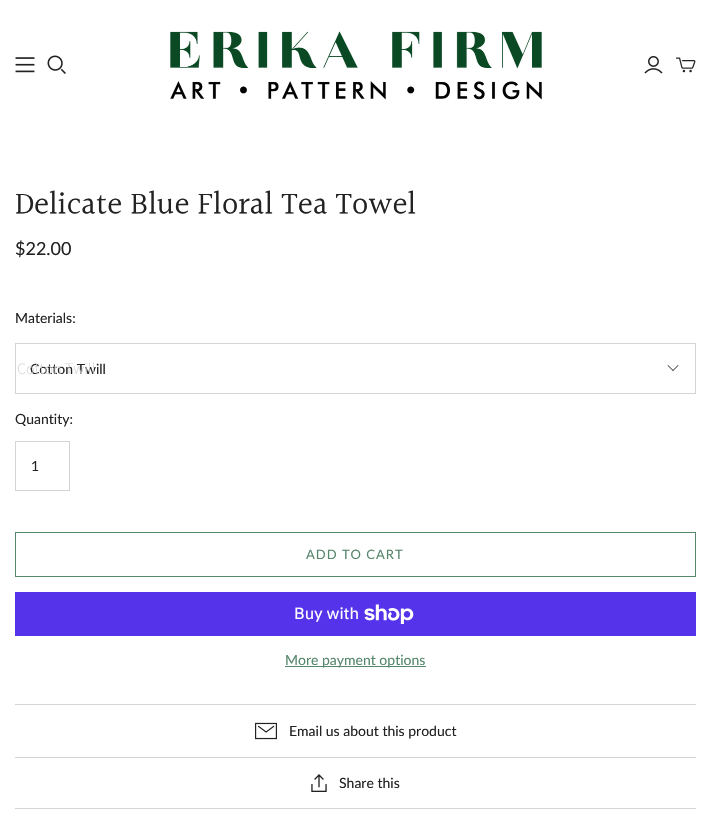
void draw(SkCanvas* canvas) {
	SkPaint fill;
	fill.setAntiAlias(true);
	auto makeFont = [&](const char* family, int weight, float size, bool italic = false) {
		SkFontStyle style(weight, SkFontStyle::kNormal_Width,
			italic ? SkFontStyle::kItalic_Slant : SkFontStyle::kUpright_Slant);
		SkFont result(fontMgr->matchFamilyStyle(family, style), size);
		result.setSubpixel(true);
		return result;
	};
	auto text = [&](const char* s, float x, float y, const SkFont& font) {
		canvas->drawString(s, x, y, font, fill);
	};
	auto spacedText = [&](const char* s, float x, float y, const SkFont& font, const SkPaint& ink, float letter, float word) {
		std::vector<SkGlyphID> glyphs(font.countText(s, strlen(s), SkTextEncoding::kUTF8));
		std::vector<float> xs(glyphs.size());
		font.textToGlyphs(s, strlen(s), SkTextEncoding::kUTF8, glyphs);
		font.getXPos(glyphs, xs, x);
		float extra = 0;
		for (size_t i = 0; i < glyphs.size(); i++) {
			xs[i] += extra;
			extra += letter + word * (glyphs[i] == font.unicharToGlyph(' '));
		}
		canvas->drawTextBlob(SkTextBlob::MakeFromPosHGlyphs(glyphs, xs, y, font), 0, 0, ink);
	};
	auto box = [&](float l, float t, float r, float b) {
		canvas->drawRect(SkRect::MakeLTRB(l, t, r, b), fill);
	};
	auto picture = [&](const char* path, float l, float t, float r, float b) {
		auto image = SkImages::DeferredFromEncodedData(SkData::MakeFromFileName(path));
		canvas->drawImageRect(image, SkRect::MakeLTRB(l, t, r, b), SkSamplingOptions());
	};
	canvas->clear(0xFFFFFFFF);
	picture("image0.png", 170, 31, 542, 100);
	picture("image1.png", 15, 57, 35, 73);
	picture("image2.png", 47, 55, 66, 74);
	picture("image3.png", 644, 56, 663, 74);
	picture("image4.png", 676, 57, 696, 73);
	fill.setStyle(SkPaint::kStroke_Style);
	fill.setStrokeWidth(1);
	fill.setColor(0xFFD4D4D4);
	canvas->drawRect(SkRect::MakeLTRB(15.5f, 343.5f, 695.5f, 393.5f), fill);
	fill.setStyle(SkPaint::kFill_Style);
	fill.setColor(0xFF222222);
	canvas->drawPath(SkPathBuilder().moveTo(672.5f, 370.5f).lineTo(678, 365).lineTo(678.5f, 365.5f).lineTo(673, 371).close().detach(), fill);
	canvas->drawPath(SkPathBuilder().moveTo(667.5f, 365.5f).lineTo(668, 365).lineTo(673.5f, 370.5f).lineTo(673, 371).close().detach(), fill);
	fill.setStyle(SkPaint::kStroke_Style);
	fill.setColor(0xFFD4D4D4);
	canvas->drawRect(SkRect::MakeLTRB(15.5f, 441.5f, 69.5f, 490.5f), fill);
	fill.setColor(0xFF56866C);
	canvas->drawRect(SkRect::MakeLTRB(15.5f, 532.5f, 695.5f, 576.5f), fill);
	fill.setStyle(SkPaint::kFill_Style);
	fill.setColor(0xFF5433EB);
	box(15, 592, 696, 636);
	picture("image5.png", 364, 604, 414, 624);
	fill.setColor(0xFF56866C);
	box(285, 666, 426, 667);
	fill.setColor(0xFFD4D4D4);
	box(15, 704, 696, 705);
	box(15, 808, 696, 809);
	picture("image6.png", 255, 722, 277, 740);
	box(15, 757, 696, 758);
	picture("image7.png", 311, 774, 327, 792);
	auto font1 = makeFont("Halant", 400, 32);
	fill.setColor(0xFF222222);
	text("Delicate Blue Floral Tea Towel", 15, 215, font1);
	auto font2 = makeFont("Lato", 400, 18);
	text("$22.00", 15, 255, font2);
	auto font3 = makeFont("Lato", 400, 14);
	text("Materials:", 15, 323, font3);
	text("Cotton Twill", 30, 374, font3);
	auto font4 = makeFont("Source Sans Pro", 300, 16);
	fill.setColor(0xFFD5D5D5);
	text("Cotton Twill", 17, 374, font4);
	fill.setColor(0xFF222222);
	text("Quantity:", 15, 424, font3);
	text("1", 31, 471, font3);
	auto font5 = makeFont("Lato", 400, 13);
	fill.setColor(0xFF56866C);
	spacedText("ADD TO CART", 306, 559, font5, fill, 1, 0);
	auto font6 = makeFont("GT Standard", 400, 16);
	fill.setColor(0xFFFFFFFF);
	text("Buy with", 294, 619, font6);
	fill.setColor(0xFF56866C);
	text("More payment options", 285, 665, font3);
	fill.setColor(0xFF222222);
	text("Email us about this product", 289, 736, font3);
	text("Share this", 339, 788, font3);
}
